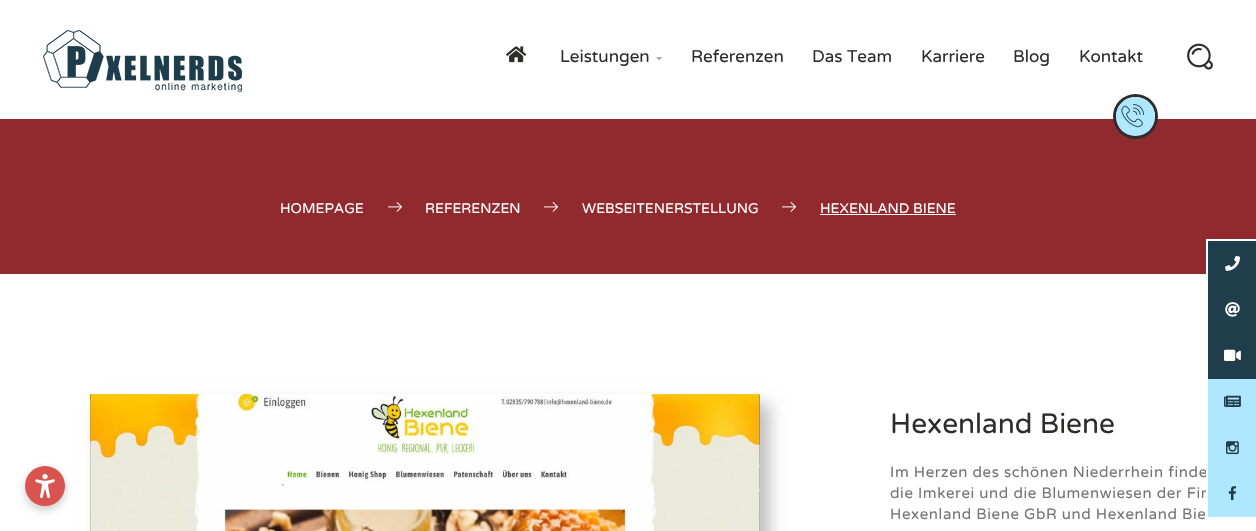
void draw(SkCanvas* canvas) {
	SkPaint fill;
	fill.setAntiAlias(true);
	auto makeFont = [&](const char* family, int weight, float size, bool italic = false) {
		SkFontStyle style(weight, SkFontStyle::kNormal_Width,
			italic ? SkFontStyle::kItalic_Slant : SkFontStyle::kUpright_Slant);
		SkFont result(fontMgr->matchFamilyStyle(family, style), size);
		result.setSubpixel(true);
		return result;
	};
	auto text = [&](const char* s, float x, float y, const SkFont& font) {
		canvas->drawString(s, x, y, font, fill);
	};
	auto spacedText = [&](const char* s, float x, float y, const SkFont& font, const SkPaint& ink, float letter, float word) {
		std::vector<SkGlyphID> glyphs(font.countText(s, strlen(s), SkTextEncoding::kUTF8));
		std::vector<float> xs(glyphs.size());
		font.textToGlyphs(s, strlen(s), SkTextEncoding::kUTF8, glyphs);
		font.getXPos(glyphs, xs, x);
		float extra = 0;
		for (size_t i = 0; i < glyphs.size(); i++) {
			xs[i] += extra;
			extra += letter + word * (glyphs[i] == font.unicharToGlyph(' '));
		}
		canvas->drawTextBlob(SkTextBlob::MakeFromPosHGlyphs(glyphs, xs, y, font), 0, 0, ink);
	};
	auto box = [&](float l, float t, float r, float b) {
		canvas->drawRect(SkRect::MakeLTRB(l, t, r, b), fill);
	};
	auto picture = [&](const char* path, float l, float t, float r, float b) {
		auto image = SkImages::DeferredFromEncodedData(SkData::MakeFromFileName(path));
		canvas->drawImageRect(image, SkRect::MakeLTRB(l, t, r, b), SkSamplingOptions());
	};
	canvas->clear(0xFFFFFFFF);
	picture("image0.png", 43, 30, 242, 92);
	picture("image1.png", 506, 46, 527, 63);
	picture("image2.png", 656, 57, 662, 61);
	picture("image3.png", 1187, 43, 1213, 70);
	fill.setColor(0xFF912A2E);
	box(0, 119, 1256, 274);
	fill.setStyle(SkPaint::kStroke_Style);
	fill.setStrokeWidth(3);
	fill.setColor(0xFF2F2C2C);
	canvas->drawCircle(1135.5f, 116.5f, 21, fill);
	canvas->save();
	canvas->clipPath(SkPathBuilder().moveTo(1135.5f, 97).cubicTo(1146.5f, 97, 1155, 105.5f, 1155, 116.5f).cubicTo(1155, 127.5f, 1146.5f, 136, 1135.5f, 136).cubicTo(1124.5f, 136, 1116, 127.5f, 1116, 116.5f).cubicTo(1116, 105.5f, 1124.5f, 97, 1135.5f, 97).close().detach(), true);
	fill.setStyle(SkPaint::kFill_Style);
	fill.setColor(0xFFAFE7FF);
	canvas->drawCircle(1136, 116, 28, fill);
	canvas->restore();
	picture("image4.png", 1121, 104, 1144, 128);
	fill.setColor(0x33000000);
	fill.setMaskFilter(SkMaskFilter::MakeBlur(kNormal_SkBlurStyle, 4));
	canvas->drawRoundRect(SkRect::MakeLTRB(25, 470, 65, 510), 20, 20, fill);
	fill.setMaskFilter(nullptr);
	fill.setColor(0xFFD9534F);
	canvas->drawCircle(45, 486, 20, fill);
	picture("image5.png", 35, 474, 55, 498);
	picture("image6.png", 388, 202, 402, 212);
	picture("image6.png", 544, 202, 558, 212);
	picture("image6.png", 782, 202, 796, 212);
	fill.setColor(0xFFFFFFFF);
	box(820, 214, 956, 215);
	fill.setColor(0xFFC0C0C0);
	fill.setMaskFilter(SkMaskFilter::MakeBlur(kNormal_SkBlurStyle, 7.5f));
	canvas->drawRect(SkRect::MakeLTRB(100, 404, 770, 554), fill);
	fill.setMaskFilter(nullptr);
	picture("image7.png", 90, 394, 760, 531);
	fill.setColor(0xFF203D4C);
	box(1208, 241, 1256, 379);
	fill.setColor(0xFFFFFFFF);
	box(1206, 239, 1256, 241);
	box(1206, 239, 1208, 274);
	picture("image8.png", 1225, 255, 1240, 271);
	picture("image9.png", 1225, 302, 1240, 317);
	picture("image10.png", 1224, 349, 1241, 361);
	fill.setColor(0xFFAFE7FF);
	box(1208, 379, 1256, 517);
	picture("image11.png", 1224, 395, 1241, 407);
	picture("image12.png", 1226, 441, 1239, 455);
	picture("image13.png", 1228, 486, 1237, 501);
	auto font1 = makeFont("Varela Round", 400, 17);
	fill.setColor(0xFF2F2C2C);
	text("Leistungen", 560, 62, font1);
	text("Referenzen", 691, 62, font1);
	text("Das Team", 812, 62, font1);
	text("Karriere", 921, 62, font1);
	text("Blog", 1013, 62, font1);
	text("Kontakt", 1079, 62, font1);
	auto font2 = makeFont("Varela Round", 400, 14);
	fill.setColor(0xFFFFFFFF);
	text("HOMEPAGE", 280, 213, font2);
	text("REFERENZEN", 425, 213, font2);
	text("WEBSEITENERSTELLUNG", 582, 213, font2);
	text("HEXENLAND BIENE", 820, 213, font2);
	auto font3 = makeFont("Varela Round", 400, 28);
	fill.setColor(0xFF2F2C2C);
	text("Hexenland Biene", 890, 433, font3);
	auto font4 = makeFont("Varela Round", 400, 15);
	fill.setColor(0xFF757575);
	spacedText("Im Herzen des schönen Niederrhein finde", 890, 477, font4, fill, 0.6f, 0);
	spacedText("die Imkerei und die Blumenwiesen der Fir", 890, 498, font4, fill, 0.6f, 0);
	spacedText("Hexenland Biene GbR und Hexenland Bie", 890, 519, font4, fill, 0.6f, 0);
	fill.setColor(0xFFFFFFFF);
	box(1206, 471, 1207, 492);
}
